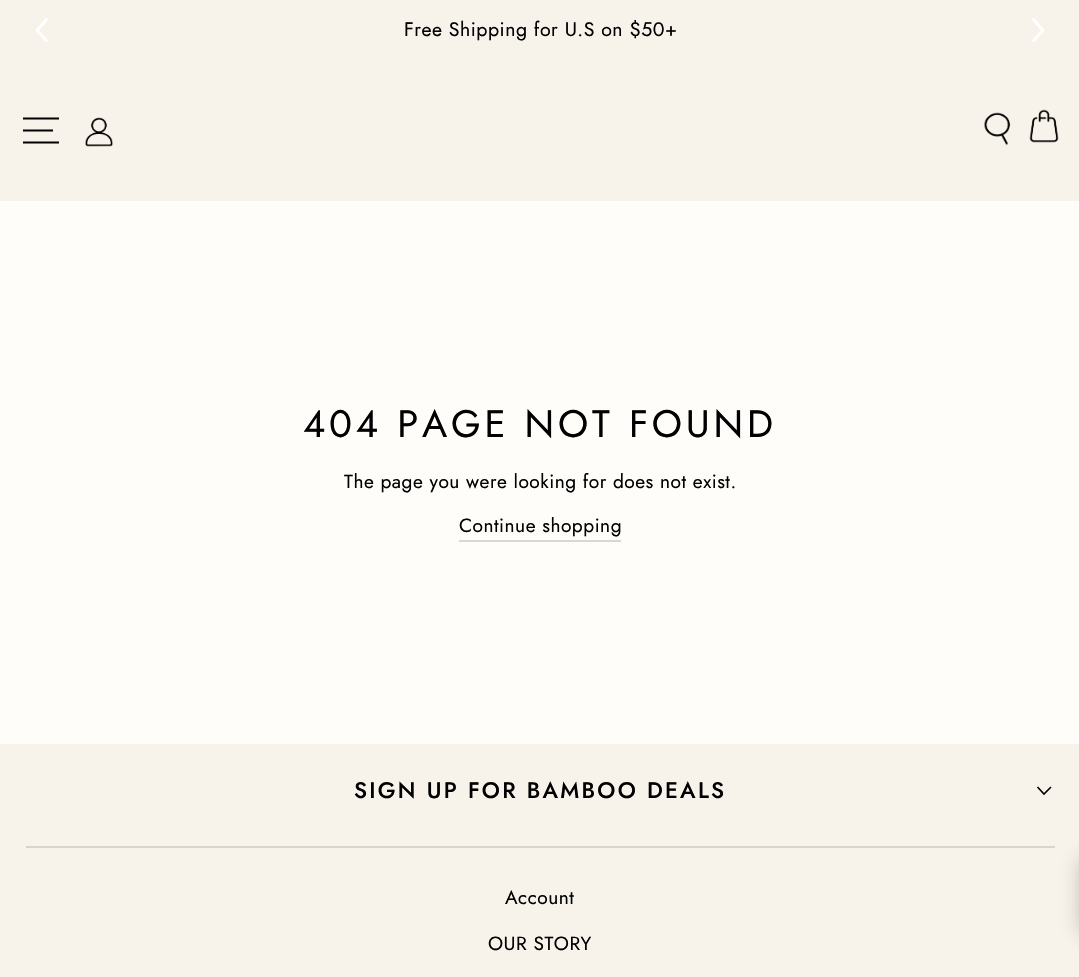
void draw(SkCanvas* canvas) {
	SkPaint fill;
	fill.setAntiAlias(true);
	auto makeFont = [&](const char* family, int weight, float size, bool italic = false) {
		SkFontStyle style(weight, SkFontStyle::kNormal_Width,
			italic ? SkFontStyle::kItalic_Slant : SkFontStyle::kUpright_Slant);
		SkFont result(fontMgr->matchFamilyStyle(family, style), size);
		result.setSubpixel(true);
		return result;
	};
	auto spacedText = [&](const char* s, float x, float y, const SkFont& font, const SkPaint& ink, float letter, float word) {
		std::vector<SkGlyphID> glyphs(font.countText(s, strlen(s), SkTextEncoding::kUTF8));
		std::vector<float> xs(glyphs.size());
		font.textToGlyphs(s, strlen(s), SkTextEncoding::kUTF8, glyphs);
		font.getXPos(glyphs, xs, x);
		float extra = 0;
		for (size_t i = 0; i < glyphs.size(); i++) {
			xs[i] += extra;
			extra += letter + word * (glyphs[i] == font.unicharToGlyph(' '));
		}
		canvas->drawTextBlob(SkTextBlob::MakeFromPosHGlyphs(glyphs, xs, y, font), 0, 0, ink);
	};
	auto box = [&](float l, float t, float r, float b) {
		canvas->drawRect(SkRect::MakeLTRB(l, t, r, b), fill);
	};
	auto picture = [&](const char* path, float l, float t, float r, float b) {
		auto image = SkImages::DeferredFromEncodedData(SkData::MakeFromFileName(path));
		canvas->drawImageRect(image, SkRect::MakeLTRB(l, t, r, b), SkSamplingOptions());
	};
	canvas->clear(0xFFFEFDFA);
	fill.setColor(0xFFF7F2EA);
	box(0, 0, 1079, 201);
	picture("image0.png", 36, 18, 48, 42);
	picture("image1.png", 1032, 18, 1044, 42);
	fill.setStyle(SkPaint::kStroke_Style);
	fill.setStrokeWidth(2.1f);
	fill.setColor(0xFF000000);
	canvas->drawPath(SkPathBuilder().moveTo(23, 118.5f).lineTo(59, 118.5f).moveTo(23, 130.5f).lineTo(53, 130.5f).moveTo(23, 142.5f).lineTo(59, 142.5f).detach(), fill);
	picture("image2.png", 85, 117, 113, 147);
	picture("image3.png", 984, 112, 1010, 145);
	picture("image4.png", 1029, 109, 1059, 143);
	fill.setStyle(SkPaint::kFill_Style);
	fill.setColor(0xFFD8D7D5);
	box(459, 540, 621, 542);
	fill.setColor(0xFFF7F2EA);
	box(0, 744, 1079, 977);
	fill.setStyle(SkPaint::kStroke_Style);
	fill.setStrokeWidth(1.6f);
	fill.setColor(0xFF000000);
	canvas->drawPath(SkPathBuilder().moveTo(1037.5f, 787).lineTo(1044, 794).lineTo(1051, 787).detach(), fill);
	fill.setStyle(SkPaint::kFill_Style);
	fill.setColor(0xFFD9D5CE);
	box(26, 846, 1055, 848);
	fill.setColor(0x80757575);
	fill.setMaskFilter(SkMaskFilter::MakeBlur(kNormal_SkBlurStyle, 10.5f));
	canvas->drawRect(SkRect::MakeLTRB(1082, 858, 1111, 933), fill);
	fill.setMaskFilter(nullptr);
	auto font1 = makeFont("Jost", 400, 19.5f);
	fill.setColor(0xFF000000);
	spacedText("Free Shipping for U.S on $50+", 404, 36, font1, fill, 0.5f, 0);
	auto font2 = makeFont("Jost", 400, 38.25f);
	spacedText("404 PAGE NOT FOUND", 303, 437, font2, fill, 3.8f, 0);
	auto font3 = makeFont("Jost", 400, 19.1f);
	spacedText("The page you were looking for does not exist.", 344, 488, font3, fill, 0.5f, 0);
	spacedText("Continue shopping", 459, 532, font3, fill, 0.5f, 0);
	auto font4 = makeFont("Jost", 500, 22.5f);
	spacedText("SIGN UP FOR BAMBOO DEALS", 354, 798, font4, fill, 2.25f, 0);
	spacedText("Account", 505, 904, font3, fill, 0.5f, 0);
	spacedText("OUR STORY", 488, 950, font3, fill, 0.5f, 0);
}
